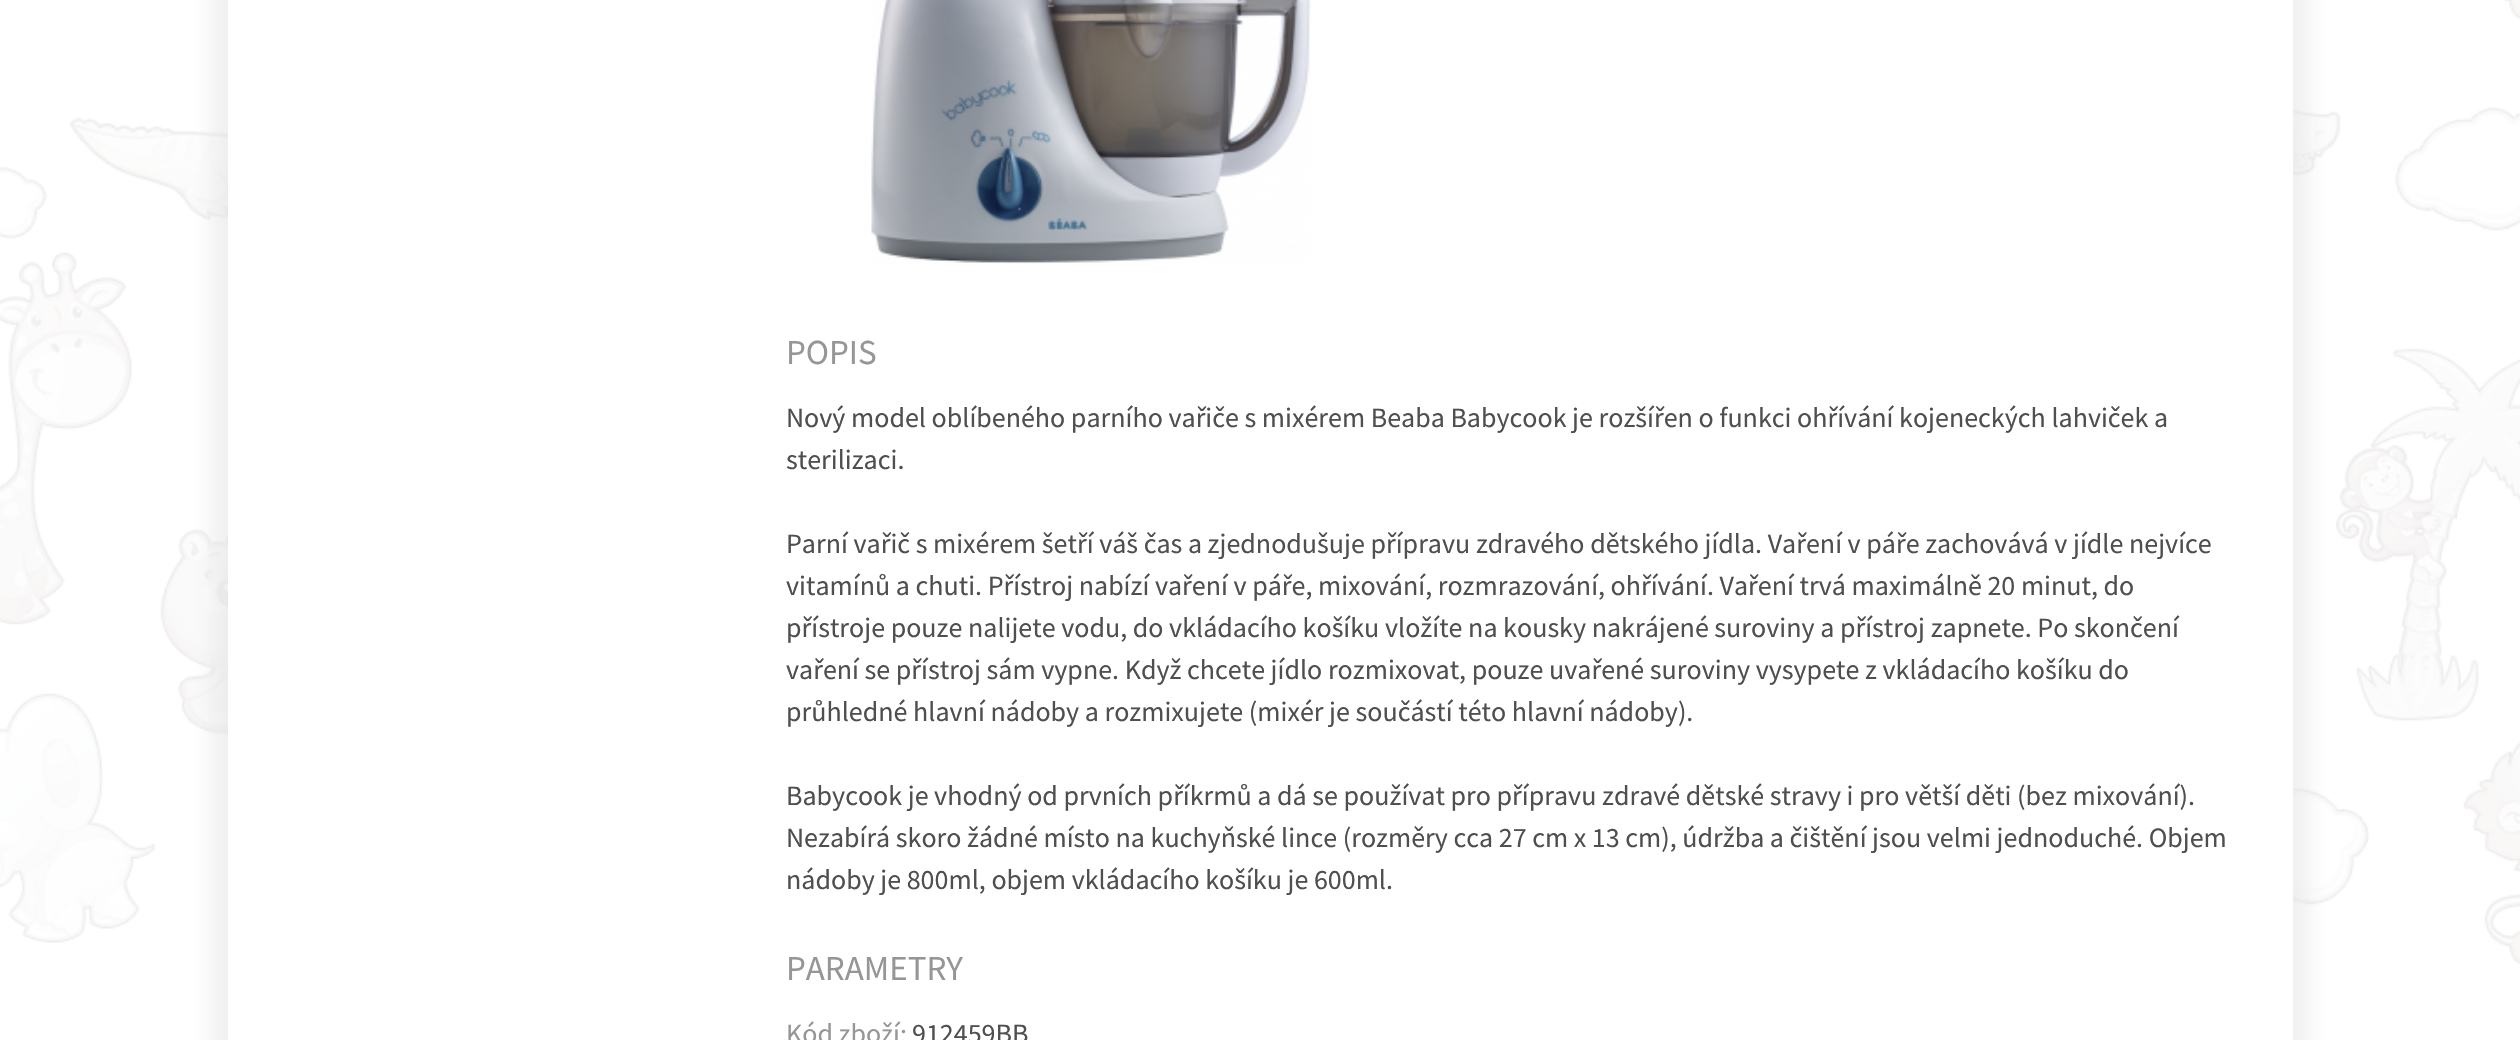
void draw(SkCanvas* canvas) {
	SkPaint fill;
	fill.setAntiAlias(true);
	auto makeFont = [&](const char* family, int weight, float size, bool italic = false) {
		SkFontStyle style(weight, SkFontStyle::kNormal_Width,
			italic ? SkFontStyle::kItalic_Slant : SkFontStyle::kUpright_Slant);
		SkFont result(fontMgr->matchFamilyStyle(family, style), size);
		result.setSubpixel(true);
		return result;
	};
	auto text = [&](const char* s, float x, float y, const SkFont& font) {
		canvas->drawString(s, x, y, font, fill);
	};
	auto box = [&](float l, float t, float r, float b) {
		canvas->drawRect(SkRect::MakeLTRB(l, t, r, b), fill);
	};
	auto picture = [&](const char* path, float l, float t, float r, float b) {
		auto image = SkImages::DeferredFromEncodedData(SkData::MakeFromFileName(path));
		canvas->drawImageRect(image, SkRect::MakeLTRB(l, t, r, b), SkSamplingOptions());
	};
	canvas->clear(0xFFFFFFFF);
	picture("image0.png", 0, 0, 2520, 1040);
	fill.setColor(0x80E1E1E1);
	fill.setMaskFilter(SkMaskFilter::MakeBlur(kNormal_SkBlurStyle, 9));
	canvas->drawRect(SkRect::MakeLTRB(210, -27, 2310, 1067), fill);
	fill.setMaskFilter(nullptr);
	fill.setColor(0xFFFFFFFF);
	box(228, 0, 2293, 1040);
	picture("image1.png", 871, 0, 1311, 264);
	auto font1 = makeFont("Source Sans Pro", 400, 35);
	fill.setColor(0xFF969696);
	text("POPIS", 786, 364, font1);
	auto font2 = makeFont("Source Sans Pro", 400, 28);
	fill.setColor(0xFF4F4F4F);
	text("Nový model oblíbeného parního vařiče s mixérem Beaba Babycook je rozšířen o funkci ohřívání kojeneckých lahviček a", 786, 427, font2);
	text("sterilizaci.", 786, 469, font2);
	text("Parní vařič s mixérem šetří váš čas a zjednodušuje přípravu zdravého dětského jídla. Vaření v páře zachovává v jídle nejvíce", 786, 553, font2);
	text("vitamínů a chuti. Přístroj nabízí vaření v páře, mixování, rozmrazování, ohřívání. Vaření trvá maximálně 20 minut, do", 786, 595, font2);
	text("přístroje pouze nalijete vodu, do vkládacího košíku vložíte na kousky nakrájené suroviny a přístroj zapnete. Po skončení", 786, 637, font2);
	text("vaření se přístroj sám vypne. Když chcete jídlo rozmixovat, pouze uvařené suroviny vysypete z vkládacího košíku do", 786, 679, font2);
	text("průhledné hlavní nádoby a rozmixujete (mixér je součástí této hlavní nádoby).", 786, 721, font2);
	text("Babycook je vhodný od prvních příkrmů a dá se používat pro přípravu zdravé dětské stravy i pro větší děti (bez mixování).", 786, 805, font2);
	text("Nezabírá skoro žádné místo na kuchyňské lince (rozměry cca 27 cm x 13 cm), údržba a čištění jsou velmi jednoduché. Objem", 786, 847, font2);
	text("nádoby je 800ml, objem vkládacího košíku je 600ml.", 786, 889, font2);
	fill.setColor(0xFF969696);
	text("PARAMETRY", 786, 980, font1);
	text("Kód zboží:", 786, 1043, font2);
	fill.setColor(0xFF4F4F4F);
	text("912459BB", 912, 1043, font2);
}
